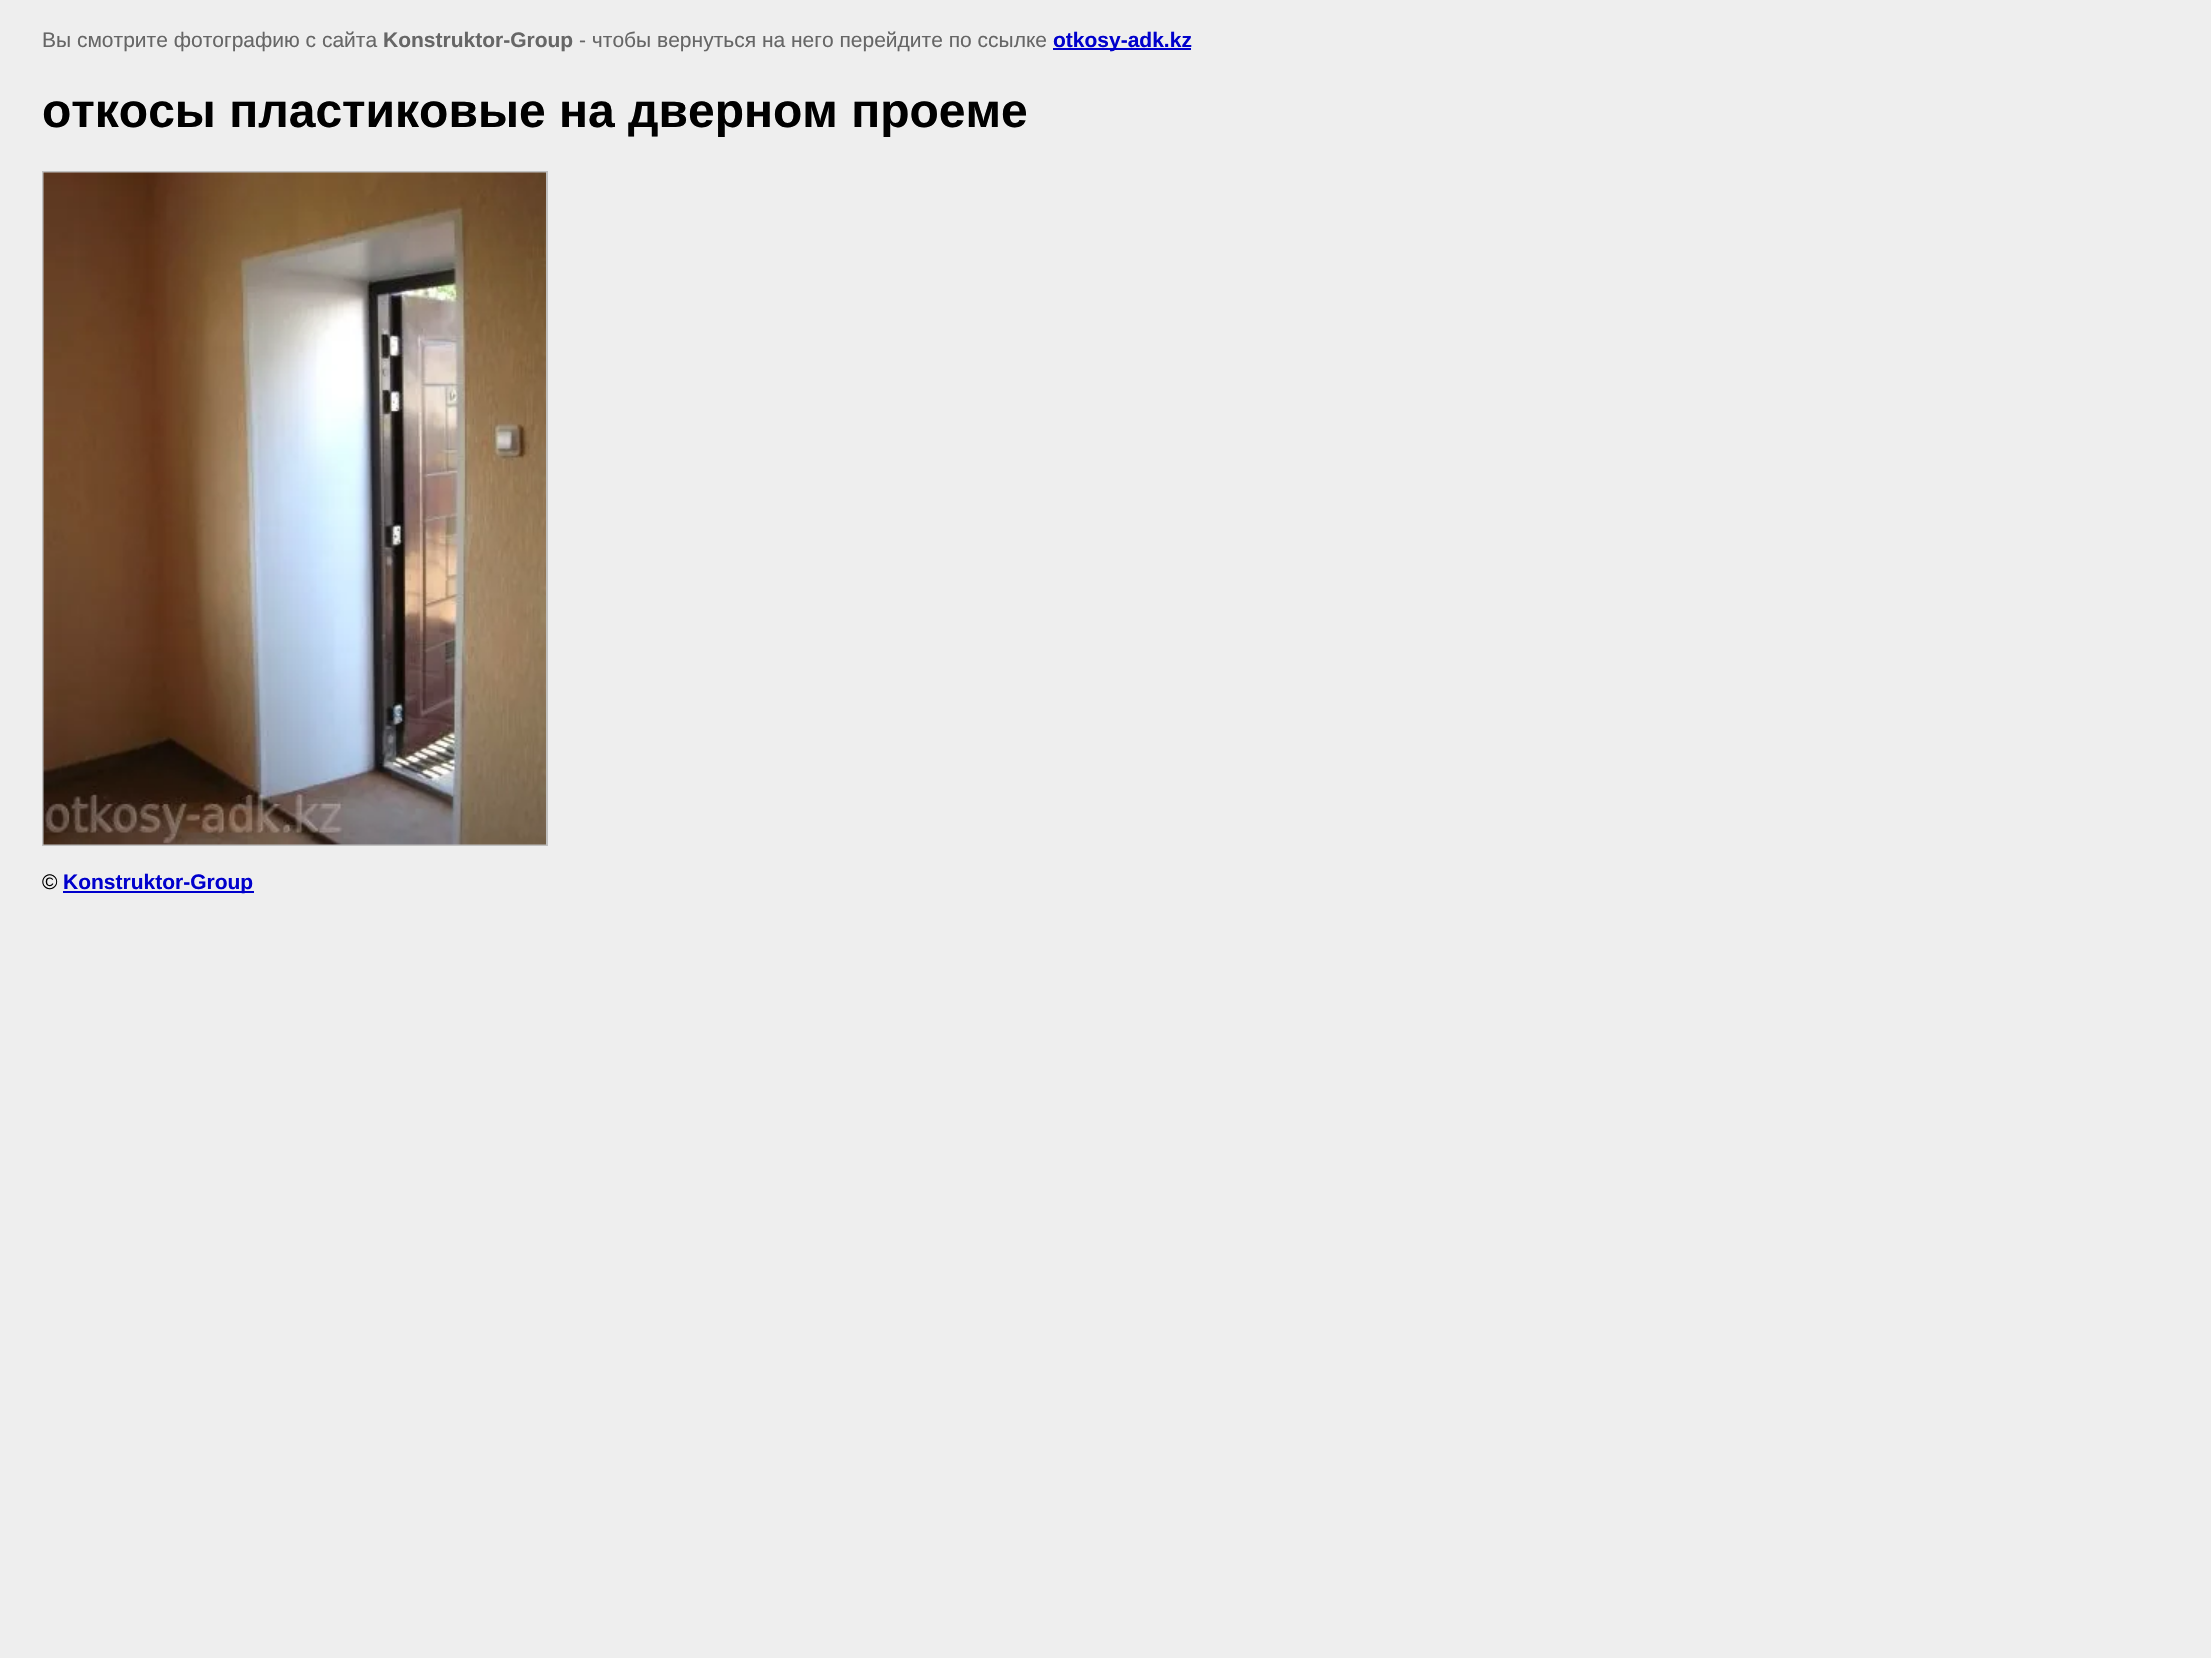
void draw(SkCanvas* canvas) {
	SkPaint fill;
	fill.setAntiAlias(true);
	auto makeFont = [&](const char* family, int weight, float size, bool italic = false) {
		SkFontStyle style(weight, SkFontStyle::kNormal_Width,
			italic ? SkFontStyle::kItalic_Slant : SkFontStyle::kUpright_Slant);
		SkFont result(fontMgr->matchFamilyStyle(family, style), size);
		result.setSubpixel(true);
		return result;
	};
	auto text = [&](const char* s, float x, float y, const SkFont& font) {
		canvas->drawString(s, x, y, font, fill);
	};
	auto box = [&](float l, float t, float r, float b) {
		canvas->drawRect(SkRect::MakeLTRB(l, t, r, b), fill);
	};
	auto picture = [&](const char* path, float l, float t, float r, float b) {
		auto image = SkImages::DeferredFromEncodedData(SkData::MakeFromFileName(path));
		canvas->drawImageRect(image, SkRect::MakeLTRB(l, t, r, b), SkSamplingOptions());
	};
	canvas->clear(0xFFEEEEEE);
	fill.setColor(0xFF0000CC);
	box(1053, 48, 1191, 50);
	fill.setStyle(SkPaint::kStroke_Style);
	fill.setStrokeWidth(2);
	fill.setColor(0xFFC0C0C0);
	canvas->drawRect(SkRect::MakeLTRB(43, 172, 547, 845), fill);
	picture("image0.png", 43, 172, 546, 845);
	fill.setStyle(SkPaint::kFill_Style);
	fill.setColor(0xFF0000CC);
	box(63, 891, 254, 893);
	auto font1 = makeFont("Liberation Sans", 400, 21);
	fill.setColor(0xFF666666);
	text("Вы смотрите фотографию с сайта", 42, 47, font1);
	auto font2 = makeFont("Liberation Sans", 700, 21);
	text("Konstruktor-Group", 383, 47, font2);
	text("- чтобы вернуться на него перейдите по ссылке", 579, 47, font1);
	fill.setColor(0xFF0000CC);
	text("otkosy-adk.kz", 1053, 47, font2);
	auto font3 = makeFont("Liberation Sans", 700, 48);
	fill.setColor(0xFF000000);
	text("откосы пластиковые на дверном проеме", 42, 127, font3);
	text("©", 42, 889, font1);
	fill.setColor(0xFF0000CC);
	text("Konstruktor-Group", 63, 889, font2);
}
